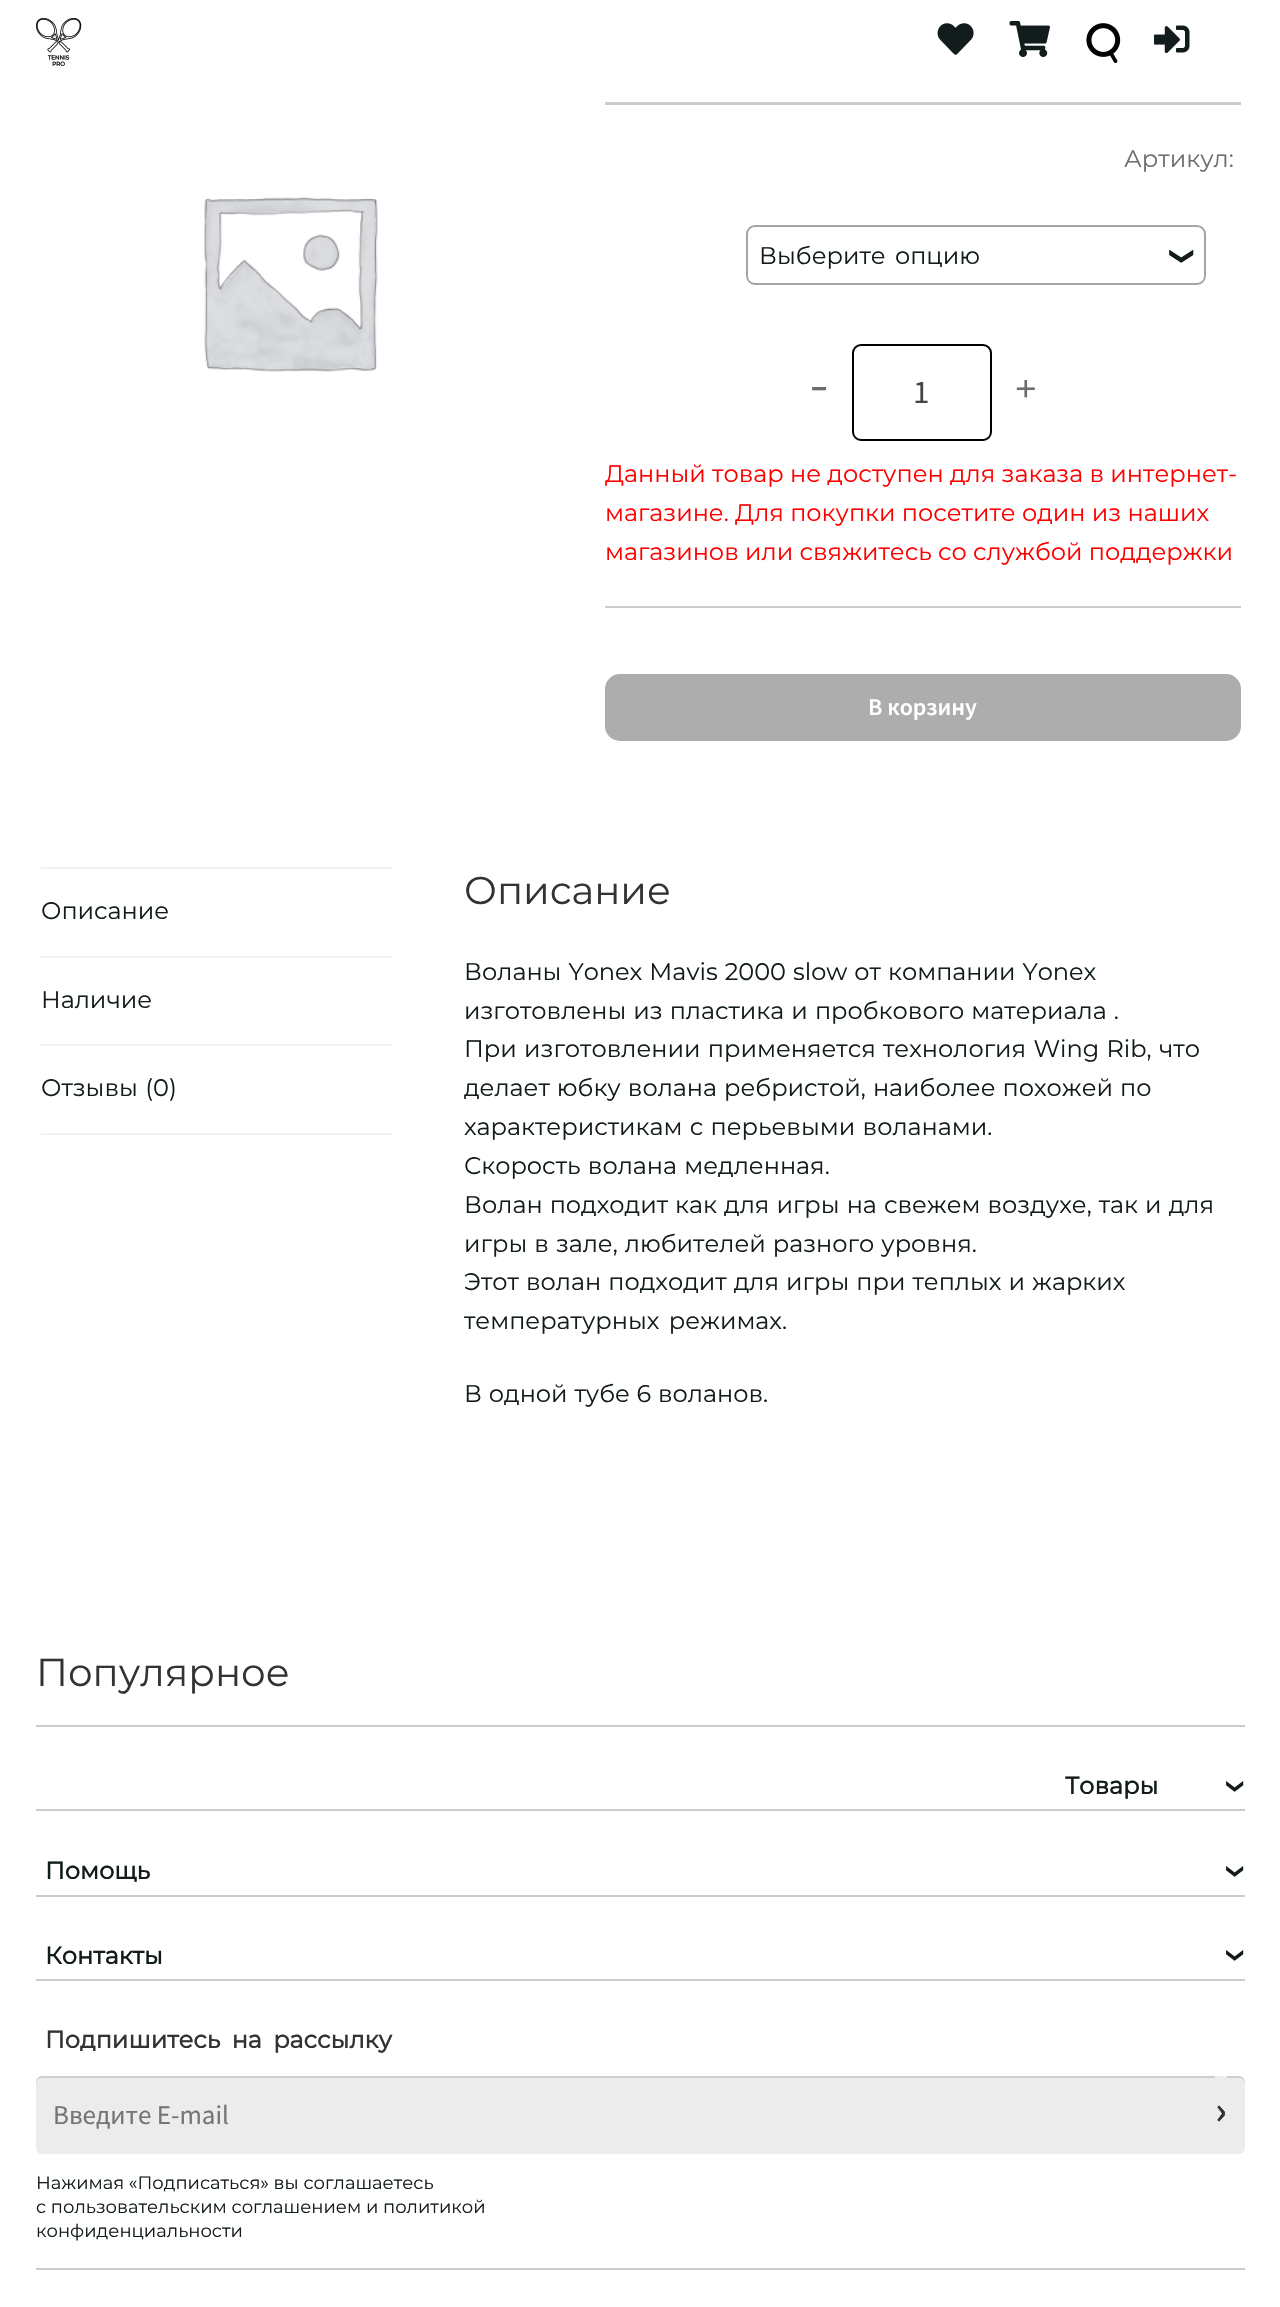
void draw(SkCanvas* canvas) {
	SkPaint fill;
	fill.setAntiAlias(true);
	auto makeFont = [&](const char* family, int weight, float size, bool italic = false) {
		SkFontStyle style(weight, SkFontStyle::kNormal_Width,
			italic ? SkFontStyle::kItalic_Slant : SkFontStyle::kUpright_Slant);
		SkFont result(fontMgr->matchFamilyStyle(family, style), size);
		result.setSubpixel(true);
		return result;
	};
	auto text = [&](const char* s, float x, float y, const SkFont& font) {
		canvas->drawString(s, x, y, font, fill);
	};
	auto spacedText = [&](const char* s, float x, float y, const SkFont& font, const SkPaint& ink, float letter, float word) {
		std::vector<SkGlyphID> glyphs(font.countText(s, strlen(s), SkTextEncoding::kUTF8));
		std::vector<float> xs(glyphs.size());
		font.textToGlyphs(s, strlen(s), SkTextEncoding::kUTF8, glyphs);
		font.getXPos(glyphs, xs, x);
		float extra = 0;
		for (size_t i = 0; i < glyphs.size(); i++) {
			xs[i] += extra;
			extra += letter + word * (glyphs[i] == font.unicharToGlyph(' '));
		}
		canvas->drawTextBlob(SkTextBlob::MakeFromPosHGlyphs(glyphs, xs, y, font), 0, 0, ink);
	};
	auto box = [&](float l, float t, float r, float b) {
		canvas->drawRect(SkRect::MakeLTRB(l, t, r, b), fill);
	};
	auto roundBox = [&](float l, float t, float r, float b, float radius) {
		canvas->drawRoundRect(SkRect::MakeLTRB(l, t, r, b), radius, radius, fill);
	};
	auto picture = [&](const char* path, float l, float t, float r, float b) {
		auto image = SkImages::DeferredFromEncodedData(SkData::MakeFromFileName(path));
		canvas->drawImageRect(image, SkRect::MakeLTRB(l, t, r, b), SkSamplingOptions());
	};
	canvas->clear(0xFFFFFFFF);
	picture("image0.png", 36, 18, 82, 66);
	picture("image1.png", 937, 23, 974, 55);
	picture("image2.png", 1009, 21, 1050, 57);
	picture("image3.png", 1086, 23, 1121, 63);
	picture("image4.png", 1154, 25, 1190, 53);
	picture("image5.png", 204, 197, 378, 372);
	fill.setColor(0xFFCCCCCC);
	box(605, 102, 1241, 105);
	fill.setStyle(SkPaint::kStroke_Style);
	fill.setStrokeWidth(2);
	fill.setColor(0xFFA4A4A4);
	canvas->drawRoundRect(SkRect::MakeLTRB(747, 226, 1205, 284), 8, 8, fill);
	fill.setStyle(SkPaint::kFill_Style);
	fill.setColor(0xFFDFDFDF);
	canvas->drawPath(SkPathBuilder().moveTo(861, 346).lineTo(982, 346).cubicTo(987, 346, 990, 350, 990, 354).cubicTo(990, 340, 970, 345, 962, 345).lineTo(882, 345).cubicTo(874, 345, 854, 340, 854, 354).cubicTo(854, 350, 857, 346, 861, 346).close().detach(), fill);
	fill.setStyle(SkPaint::kStroke_Style);
	fill.setColor(0xFF000000);
	canvas->drawRoundRect(SkRect::MakeLTRB(853, 345, 991, 440), 8, 8, fill);
	fill.setStyle(SkPaint::kFill_Style);
	fill.setColor(0xFFCCCCCC);
	box(605, 606, 1241, 608);
	fill.setColor(0xFFADADAD);
	roundBox(605, 674, 1241, 741, 15);
	fill.setColor(0xFFF2F2F2);
	box(41, 867, 393, 869);
	box(41, 956, 393, 958);
	box(41, 1044, 393, 1046);
	box(41, 1133, 393, 1135);
	fill.setColor(0xFFCCCCCC);
	box(36, 1725, 1245, 1727);
	box(36, 1809, 1245, 1811);
	box(36, 1895, 1245, 1897);
	box(36, 1979, 1245, 1981);
	fill.setColor(0xFFECECEC);
	roundBox(36, 2076, 1245, 2154, 6);
	fill.setColor(0x1F000000);
	canvas->drawPath(SkPathBuilder().moveTo(42, 2078).lineTo(1239, 2078).cubicTo(1242, 2078, 1245, 2080, 1245, 2084).lineTo(1245, 2082).cubicTo(1245, 2079, 1242, 2076, 1239, 2076).lineTo(42, 2076).cubicTo(39, 2076, 36, 2079, 36, 2082).lineTo(36, 2084).cubicTo(36, 2080, 39, 2078, 42, 2078).close().detach(), fill);
	fill.setColor(0xFFEEEEEE);
	box(1215, 2076, 1227, 2078);
	fill.setColor(0xFFCCCCCC);
	box(36, 2268, 1245, 2270);
	auto font1 = makeFont("Montserrat", 400, 24);
	fill.setColor(0xFF6D6D6D);
	text("Артикул:", 1124, 167, font1);
	fill.setColor(0xFF131C1C);
	spacedText("Выберите опцию", 759, 264, font1, fill, 0, 3);
	auto font2 = makeFont("DejaVu Sans", 400, 24);
	canvas->save();
	canvas->rotate(90, 1175, 246);
	text("❯", 1175, 246, font2);
	canvas->restore();
	auto font3 = makeFont("Montserrat", 400, 53);
	fill.setColor(0xFF6D6D6D);
	text("-", 809, 403, font3);
	auto font4 = makeFont("Source Sans Pro", 400, 33);
	fill.setColor(0xFF43454B);
	text("1", 913, 403, font4);
	auto font5 = makeFont("Montserrat", 400, 41);
	fill.setColor(0xFF6D6D6D);
	text("+", 1014, 403, font5);
	fill.setColor(0xFFFF0000);
	text("Данный товар не доступен для заказа в интернет-", 605, 482, font1);
	text("магазине. Для покупки посетите один из наших", 605, 521, font1);
	text("магазинов или свяжитесь со службой поддержки", 605, 560, font1);
	auto font6 = makeFont("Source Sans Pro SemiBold", 600, 24);
	fill.setColor(0xFFFFFFFF);
	text("В корзину", 868, 715, font6);
	fill.setColor(0xFF131C1C);
	text("Описание", 41, 919, font1);
	text("Наличие", 41, 1008, font1);
	spacedText("Отзывы (0)", 41, 1096, font1, fill, 0, 1);
	auto font7 = makeFont("Montserrat", 400, 38.75f);
	fill.setColor(0xFF333333);
	text("Описание", 464, 904, font7);
	fill.setColor(0xFF131C1C);
	spacedText("Воланы Yonex Mavis 2000 slow от компании Yonex", 464, 980, font1, fill, 0, 0.75f);
	spacedText("изготовлены из пластика и пробкового материала .", 464, 1019, font1, fill, 0, 0.75f);
	spacedText("При изготовлении применяется технология Wing Rib, что", 464, 1057, font1, fill, 0, 1);
	spacedText("делает юбку волана ребристой, наиболее похожей по", 464, 1096, font1, fill, 0, 0.75f);
	spacedText("характеристикам с перьевыми воланами.", 464, 1135, font1, fill, 0, 1);
	spacedText("Скорость волана медленная.", 464, 1174, font1, fill, 0, 1);
	spacedText("Волан подходит как для игры на свежем воздухе, так и для", 464, 1213, font1, fill, 0, 0.75f);
	spacedText("игры в зале, любителей разного уровня.", 464, 1252, font1, fill, 0, 0.75f);
	spacedText("Этот волан подходит для игры при теплых и жарких", 464, 1290, font1, fill, 0, 0.75f);
	spacedText("температурных режимах.", 464, 1329, font1, fill, 0, 3);
	spacedText("В одной тубе 6 воланов.", 464, 1402, font1, fill, 0, 0.5f);
	fill.setColor(0xFF333333);
	text("Популярное", 36, 1686, font7);
	auto font8 = makeFont("Montserrat", 700, 24);
	fill.setColor(0xFF131C1C);
	text("Товары", 1065, 1794, font8);
	auto font9 = makeFont("Montserrat", 700, 42);
	canvas->save();
	canvas->rotate(90, 1223, 1780);
	text("›", 1223, 1780, font9);
	canvas->restore();
	text("Помощь", 45, 1879, font8);
	canvas->save();
	canvas->rotate(90, 1223, 1865);
	text("›", 1223, 1865, font9);
	canvas->restore();
	text("Контакты", 45, 1964, font8);
	canvas->save();
	canvas->rotate(90, 1223, 1949);
	text("›", 1223, 1949, font9);
	canvas->restore();
	fill.setColor(0xFF333333);
	spacedText("Подпишитесь на рассылку", 45, 2048, font8, fill, 0, 5);
	auto font10 = makeFont("Source Sans Pro", 400, 27);
	fill.setColor(0xFF757575);
	text("Введите E-mail", 53, 2124, font10);
	auto font11 = makeFont("Source Sans Pro SemiBold", 600, 42);
	fill.setColor(0xFF333333);
	text("›", 1215, 2124, font11);
	auto font12 = makeFont("Montserrat", 400, 18);
	fill.setColor(0xFF131C1C);
	text("Нажимая «Подписаться» вы соглашаетесь", 36, 2189, font12);
	text("c пользовательским соглашением и политикой", 36, 2213, font12);
	text("конфиденциальности", 36, 2237, font12);
}
